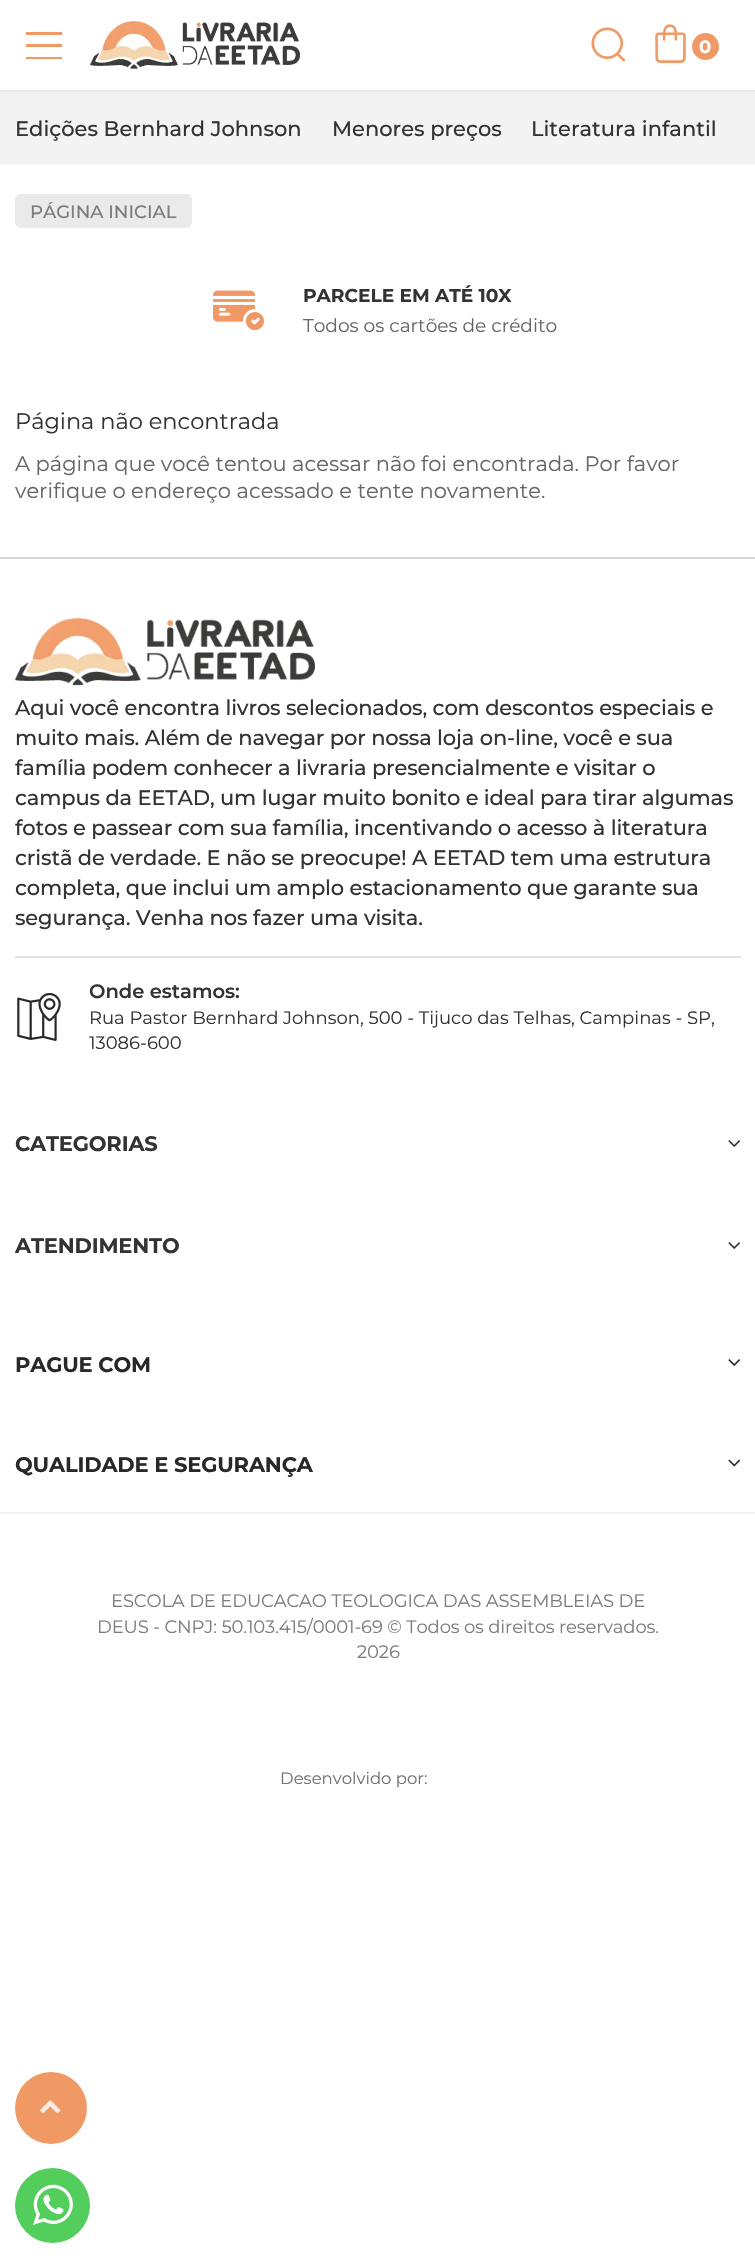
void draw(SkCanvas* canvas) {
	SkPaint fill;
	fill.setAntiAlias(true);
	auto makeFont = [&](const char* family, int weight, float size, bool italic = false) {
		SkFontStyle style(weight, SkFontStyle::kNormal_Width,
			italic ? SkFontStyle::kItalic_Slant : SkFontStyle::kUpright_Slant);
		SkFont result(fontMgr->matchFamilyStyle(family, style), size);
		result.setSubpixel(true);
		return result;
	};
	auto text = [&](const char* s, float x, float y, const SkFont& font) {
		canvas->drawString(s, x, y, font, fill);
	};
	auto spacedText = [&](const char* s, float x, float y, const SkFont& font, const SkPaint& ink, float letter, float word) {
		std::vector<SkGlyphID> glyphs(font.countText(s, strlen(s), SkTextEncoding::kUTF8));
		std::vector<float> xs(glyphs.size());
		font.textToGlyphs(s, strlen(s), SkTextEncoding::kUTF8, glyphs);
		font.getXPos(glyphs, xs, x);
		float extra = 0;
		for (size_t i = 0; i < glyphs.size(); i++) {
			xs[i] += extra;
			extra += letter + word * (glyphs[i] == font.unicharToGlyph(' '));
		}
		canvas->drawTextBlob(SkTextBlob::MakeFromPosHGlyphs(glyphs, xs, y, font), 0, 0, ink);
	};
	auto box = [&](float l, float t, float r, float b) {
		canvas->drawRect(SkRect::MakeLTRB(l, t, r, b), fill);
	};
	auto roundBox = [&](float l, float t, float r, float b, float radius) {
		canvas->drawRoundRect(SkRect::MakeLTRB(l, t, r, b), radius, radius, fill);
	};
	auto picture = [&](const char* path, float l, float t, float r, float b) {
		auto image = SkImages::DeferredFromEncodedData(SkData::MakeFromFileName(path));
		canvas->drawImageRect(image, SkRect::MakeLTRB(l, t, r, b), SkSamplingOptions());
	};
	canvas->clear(0xFFFFFFFF);
	fill.setColor(0xFFF09964);
	box(26, 32, 62, 35);
	box(26, 44, 62, 47);
	box(26, 57, 62, 59);
	picture("image0.png", 90, 21, 300, 69);
	picture("image1.png", 591, 27, 626, 62);
	picture("image2.png", 655, 24, 686, 63);
	canvas->drawCircle(705.5f, 46.5f, 13.5f, fill);
	fill.setColor(0xFFF3F3F3);
	box(0, 92, 755, 165);
	fill.setColor(0xFFE8E8E8);
	box(0, 90, 755, 92);
	fill.setColor(0xFFEAEAEA);
	roundBox(15, 194, 192, 228, 6);
	picture("image3.png", 213, 290, 264, 331);
	fill.setColor(0xFFD6D6D6);
	box(0, 557, 755, 559);
	picture("image4.png", 15, 618, 315, 686);
	fill.setColor(0xFFE2E2E2);
	box(15, 956, 741, 958);
	picture("image5.png", 17, 993, 61, 1041);
	picture("image6.png", 728, 1140, 740, 1147);
	picture("image6.png", 728, 1242, 740, 1249);
	picture("image7.png", 728, 1359, 740, 1366);
	picture("image8.png", 728, 1459, 741, 1467);
	fill.setColor(0xFFF1F1F1);
	box(0, 1512, 755, 1514);
	fill.setColor(0xFFF09964);
	canvas->drawCircle(51, 2108, 36, fill);
	picture("image9.png", 40, 2100, 61, 2114);
	fill.setColor(0xFF53CE5D);
	canvas->drawCircle(52.5f, 2205.5f, 37.5f, fill);
	picture("image10.png", 33, 2184, 73, 2225);
	auto font1 = makeFont("Montserrat", 700, 18);
	fill.setColor(0xFFFFFFFF);
	text("0", 699, 53, font1);
	auto font2 = makeFont("Montserrat", 500, 21);
	fill.setColor(0xFF333333);
	text("Edições Bernhard Johnson", 15, 136, font2);
	text("Menores preços", 332, 136, font2);
	text("Literatura infantil", 531, 136, font2);
	auto font3 = makeFont("Montserrat", 500, 18);
	fill.setColor(0xFF7C7C7C);
	text("PÁGINA INICIAL", 30, 218, font3);
	auto font4 = makeFont("Montserrat", 700, 18.6f);
	fill.setColor(0xFF333333);
	text("PARCELE EM ATÉ 10X", 303, 302, font4);
	auto font5 = makeFont("Montserrat", 400, 18.6f);
	fill.setColor(0xFF666666);
	text("Todos os cartões de crédito", 303, 332, font5);
	auto font6 = makeFont("Montserrat", 400, 22.5f);
	fill.setColor(0xFF333333);
	text("Página não encontrada", 15, 429, font6);
	auto font7 = makeFont("Montserrat", 400, 21);
	fill.setColor(0xFF666666);
	text("A página que você tentou acessar não foi encontrada. Por favor", 15, 471, font7);
	text("verifique o endereço acessado e tente novamente.", 15, 498, font7);
	fill.setColor(0xFF333333);
	spacedText("Aqui você encontra livros selecionados, com descontos especiais e", 15, 715, font2, fill, -0.15f, 0);
	spacedText("muito mais. Além de navegar por nossa loja on-line, você e sua", 15, 745, font2, fill, -0.15f, 0);
	spacedText("família podem conhecer a livraria presencialmente e visitar o", 15, 775, font2, fill, -0.15f, 0);
	spacedText("campus da EETAD, um lugar muito bonito e ideal para tirar algumas", 15, 805, font2, fill, -0.15f, 0);
	spacedText("fotos e passear com sua família, incentivando o acesso à literatura", 15, 835, font2, fill, -0.15f, 0);
	spacedText("cristã de verdade. E não se preocupe! A EETAD tem uma estrutura", 15, 865, font2, fill, -0.15f, 0);
	spacedText("completa, que inclui um amplo estacionamento que garante sua", 15, 895, font2, fill, -0.15f, 0);
	spacedText("segurança. Venha nos fazer uma visita.", 15, 925, font2, fill, -0.15f, 0);
	auto font8 = makeFont("Montserrat", 600, 19.5f);
	text("Onde estamos:", 89, 998, font8);
	auto font9 = makeFont("Montserrat", 400, 18);
	text("Rua Pastor Bernhard Johnson, 500 - Tijuco das Telhas, Campinas - SP,", 89, 1024, font9);
	text("13086-600", 89, 1049, font9);
	auto font10 = makeFont("Montserrat", 700, 21);
	spacedText("CATEGORIAS", 15, 1151, font10, fill, -0.15f, 0);
	spacedText("ATENDIMENTO", 15, 1253, font10, fill, -0.15f, 0);
	fill.setColor(0xFF282828);
	spacedText("PAGUE COM", 15, 1372, font10, fill, -0.15f, 0);
	spacedText("QUALIDADE E SEGURANÇA", 15, 1472, font10, fill, -0.15f, 0);
	fill.setColor(0xFF7C7C7C);
	spacedText("ESCOLA DE EDUCACAO TEOLOGICA DAS ASSEMBLEIAS DE", 111, 1607, font9, fill, -0.15f, 0);
	spacedText("DEUS - CNPJ: 50.103.415/0001-69 © Todos os direitos reservados.", 97, 1633, font9, fill, -0.15f, 0);
	spacedText("2026", 357, 1658, font9, fill, -0.15f, 0);
	auto font11 = makeFont("Montserrat", 400, 16.5f);
	fill.setColor(0xFF717171);
	text("Desenvolvido por:", 280, 1784, font11);
}
